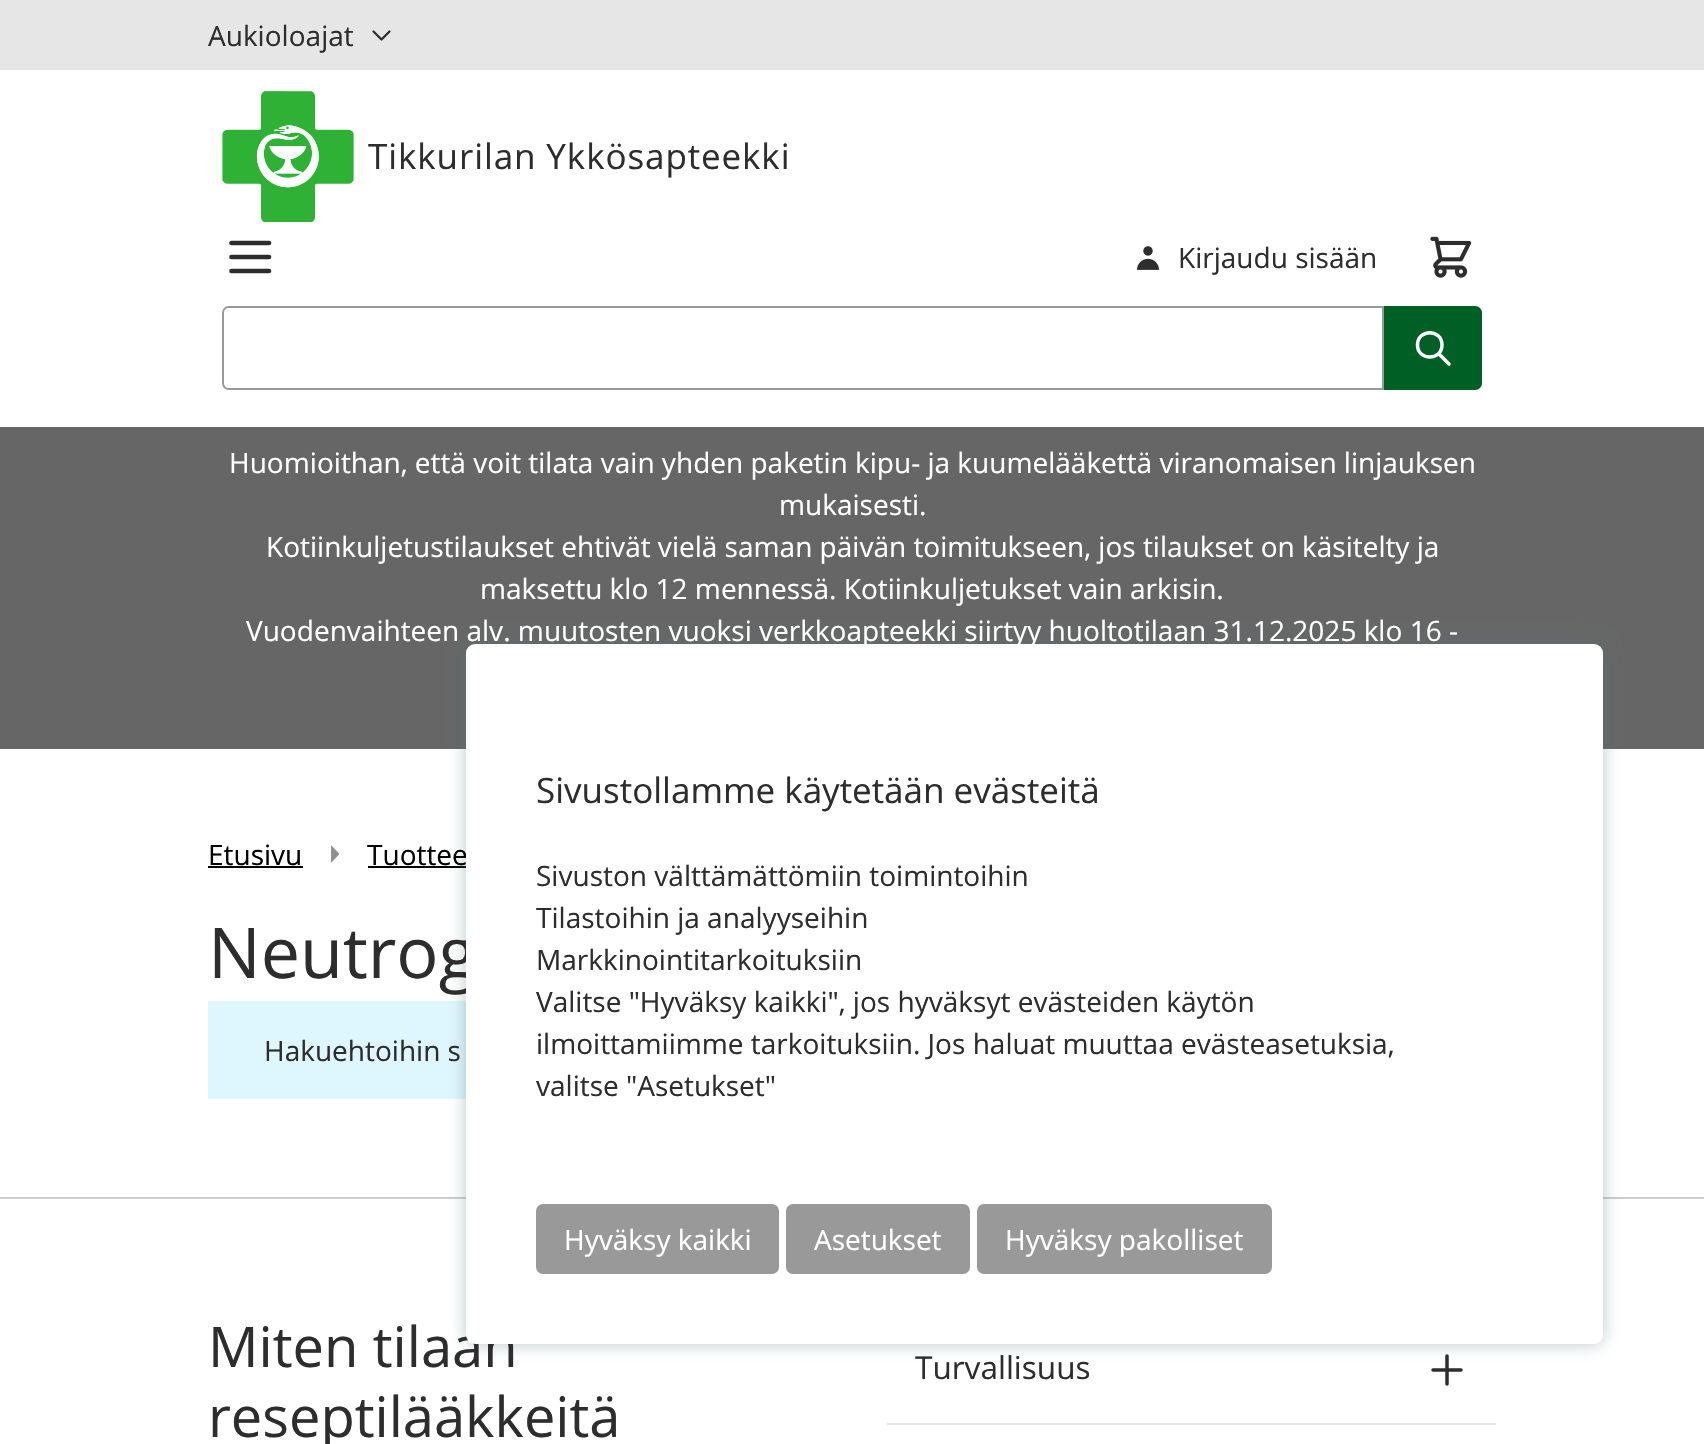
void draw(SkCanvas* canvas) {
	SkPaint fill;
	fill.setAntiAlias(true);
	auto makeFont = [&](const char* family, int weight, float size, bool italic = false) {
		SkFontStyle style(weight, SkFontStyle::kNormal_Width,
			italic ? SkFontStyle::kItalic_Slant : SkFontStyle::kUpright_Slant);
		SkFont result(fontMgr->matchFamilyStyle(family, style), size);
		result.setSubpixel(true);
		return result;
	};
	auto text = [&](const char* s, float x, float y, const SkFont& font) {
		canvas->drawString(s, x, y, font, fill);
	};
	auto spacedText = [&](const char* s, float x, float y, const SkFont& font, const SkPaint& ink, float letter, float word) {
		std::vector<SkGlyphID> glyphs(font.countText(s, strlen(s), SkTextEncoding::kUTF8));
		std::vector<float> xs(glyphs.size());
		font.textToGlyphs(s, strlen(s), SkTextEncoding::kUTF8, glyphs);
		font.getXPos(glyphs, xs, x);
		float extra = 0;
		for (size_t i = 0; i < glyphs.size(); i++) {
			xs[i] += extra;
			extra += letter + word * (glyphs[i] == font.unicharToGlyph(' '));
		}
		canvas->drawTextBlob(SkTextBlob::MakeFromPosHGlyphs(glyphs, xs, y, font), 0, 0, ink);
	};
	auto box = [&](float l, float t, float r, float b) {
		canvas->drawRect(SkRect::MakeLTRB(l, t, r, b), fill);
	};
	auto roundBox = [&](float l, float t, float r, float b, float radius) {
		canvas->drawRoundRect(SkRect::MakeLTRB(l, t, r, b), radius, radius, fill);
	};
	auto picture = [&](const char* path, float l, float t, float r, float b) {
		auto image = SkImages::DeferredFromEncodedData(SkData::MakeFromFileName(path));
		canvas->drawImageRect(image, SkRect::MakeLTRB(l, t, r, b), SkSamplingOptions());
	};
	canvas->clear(0xFFFFFFFF);
	fill.setColor(0xFFE6E6E6);
	box(0, 0, 1704, 70);
	fill.setStyle(SkPaint::kStroke_Style);
	fill.setStrokeWidth(2.3f);
	fill.setStrokeCap(SkPaint::kRound_Cap);
	fill.setStrokeJoin(SkPaint::kRound_Join);
	fill.setColor(0xFF2D2D2D);
	canvas->drawPath(SkPathBuilder().moveTo(389.5f, 31.5f).lineTo(381.5f, 39.5f).lineTo(373.5f, 31.5f).detach(), fill);
	picture("image0.png", 222, 91, 354, 222);
	fill.setStrokeWidth(4.7f);
	canvas->drawPath(SkPathBuilder().moveTo(231.5f, 243).lineTo(269, 243).moveTo(231.5f, 257).lineTo(269, 257).moveTo(231.5f, 271).lineTo(269, 271).detach(), fill);
	picture("image1.png", 1137, 246, 1159, 270);
	picture("image2.png", 1430, 236, 1472, 278);
	fill.setStrokeWidth(2);
	fill.setStrokeCap(SkPaint::kButt_Cap);
	fill.setStrokeJoin(SkPaint::kMiter_Join);
	fill.setColor(0xFF999999);
	canvas->drawPath(SkPathBuilder().moveTo(229, 307).lineTo(1383, 307).lineTo(1383, 389).lineTo(229, 389).cubicTo(225.5f, 389, 223, 386.5f, 223, 383).lineTo(223, 313).cubicTo(223, 309.5f, 225.5f, 307, 229, 307).close().detach(), fill);
	fill.setStyle(SkPaint::kFill_Style);
	fill.setColor(0xFF005F25);
	canvas->drawPath(SkPathBuilder().moveTo(1384, 306).lineTo(1475, 306).cubicTo(1479, 306, 1482, 309, 1482, 313).lineTo(1482, 383).cubicTo(1482, 387, 1479, 390, 1475, 390).lineTo(1384, 390).close().detach(), fill);
	fill.setStyle(SkPaint::kStroke_Style);
	fill.setStrokeWidth(3.5f);
	fill.setStrokeCap(SkPaint::kRound_Cap);
	fill.setStrokeJoin(SkPaint::kRound_Join);
	fill.setColor(0xFFFFFFFF);
	canvas->drawPath(SkPathBuilder().moveTo(1449, 364).lineTo(1438.5f, 353.5f).moveTo(1442, 345).cubicTo(1442, 361, 1417.5f, 361, 1417.5f, 345).cubicTo(1417.5f, 328.5f, 1442, 328.5f, 1442, 345).close().detach(), fill);
	fill.setStyle(SkPaint::kFill_Style);
	fill.setColor(0xFF666666);
	box(0, 427, 1704, 749);
	fill.setColor(0xFF000000);
	box(208, 866, 303, 868);
	fill.setColor(0xFF919191);
	canvas->drawPath(SkPathBuilder().moveTo(331, 863).lineTo(339.5f, 854).lineTo(331, 845).close().detach(), fill);
	fill.setColor(0xFF000000);
	box(368, 866, 466, 868);
	fill.setColor(0xFFDEF6FE);
	box(208, 1001, 466, 1099);
	fill.setColor(0xFFCCCCCC);
	box(0, 1197, 1704, 1199);
	fill.setStyle(SkPaint::kStroke_Style);
	fill.setColor(0xFF2D2D2D);
	canvas->drawPath(SkPathBuilder().moveTo(1447, 1356).lineTo(1447, 1384).moveTo(1461, 1370).lineTo(1433, 1370).detach(), fill);
	fill.setStyle(SkPaint::kFill_Style);
	fill.setColor(0x66547478);
	fill.setMaskFilter(SkMaskFilter::MakeBlur(kNormal_SkBlurStyle, 9));
	canvas->drawRoundRect(SkRect::MakeLTRB(466, 644, 1603, 1344), 9, 9, fill);
	fill.setMaskFilter(nullptr);
	fill.setColor(0xFFE6E6E6);
	box(887, 1423, 1496, 1425);
	auto font1 = makeFont("Open Sans", 400, 28);
	fill.setColor(0xFF2D2D2D);
	text("Aukioloajat", 208, 46, font1);
	auto font2 = makeFont("Open Sans", 400, 35);
	spacedText("Tikkurilan Ykkösapteekki", 368, 169, font2, fill, 0.9f, 0);
	text("Kirjaudu sisään", 1178, 268, font1);
	fill.setColor(0xFFFFFFFF);
	text("Huomioithan, että voit tilata vain yhden paketin kipu- ja kuumelääkettä viranomaisen linjauksen", 229, 473, font1);
	text("mukaisesti.", 779, 515, font1);
	text("Kotiinkuljetustilaukset ehtivät vielä saman päivän toimitukseen, jos tilaukset on käsitelty ja", 266, 557, font1);
	text("maksettu klo 12 mennessä. Kotiinkuljetukset vain arkisin.", 480, 599, font1);
	text("Vuodenvaihteen alv. muutosten vuoksi verkkoapteekki siirtyy huoltotilaan 31.12.2025 klo 16 -", 246, 641, font1);
	fill.setColor(0xFF000000);
	text("Etusivu", 208, 865, font1);
	text("Tuottee", 367, 865, font1);
	auto font3 = makeFont("Open Sans", 400, 70);
	fill.setColor(0xFF2D2D2D);
	text("Neutrog", 208, 978, font3);
	text("Hakuehtoihin s", 264, 1061, font1);
	auto font4 = makeFont("Open Sans", 400, 56);
	text("Miten tilaan", 208, 1367, font4);
	fill.setColor(0xFFFFFFFF);
	roundBox(466, 644, 1603, 1344, 9);
	fill.setColor(0xFF2D2D2D);
	text("valitse \"Asetukset\"", 536, 1096, font1);
	text("ilmoittamiimme tarkoituksiin. Jos haluat muuttaa evästeasetuksia,", 536, 1054, font1);
	text("Valitse \"Hyväksy kaikki\", jos hyväksyt evästeiden käytön", 536, 1012, font1);
	text("Markkinointitarkoituksiin", 536, 970, font1);
	text("Tilastoihin ja analyyseihin", 536, 928, font1);
	text("Sivuston välttämättömiin toimintoihin", 536, 886, font1);
	fill.setColor(0xFF999999);
	roundBox(977, 1204, 1272, 1274, 7);
	fill.setColor(0xFFFFFFFF);
	text("Hyväksy pakolliset", 1005, 1250, font1);
	fill.setColor(0xFF999999);
	roundBox(786, 1204, 970, 1274, 7);
	fill.setColor(0xFFFFFFFF);
	text("Asetukset", 814, 1250, font1);
	fill.setColor(0xFF999999);
	roundBox(536, 1204, 779, 1274, 7);
	fill.setColor(0xFFFFFFFF);
	text("Hyväksy kaikki", 564, 1250, font1);
	fill.setColor(0xFF2D2D2D);
	text("Sivustollamme käytetään evästeitä", 536, 803, font2);
	text("reseptilääkkeitä", 208, 1437, font4);
	auto font5 = makeFont("Open Sans", 400, 31.5f);
	text("Turvallisuus", 915, 1379, font5);
}
